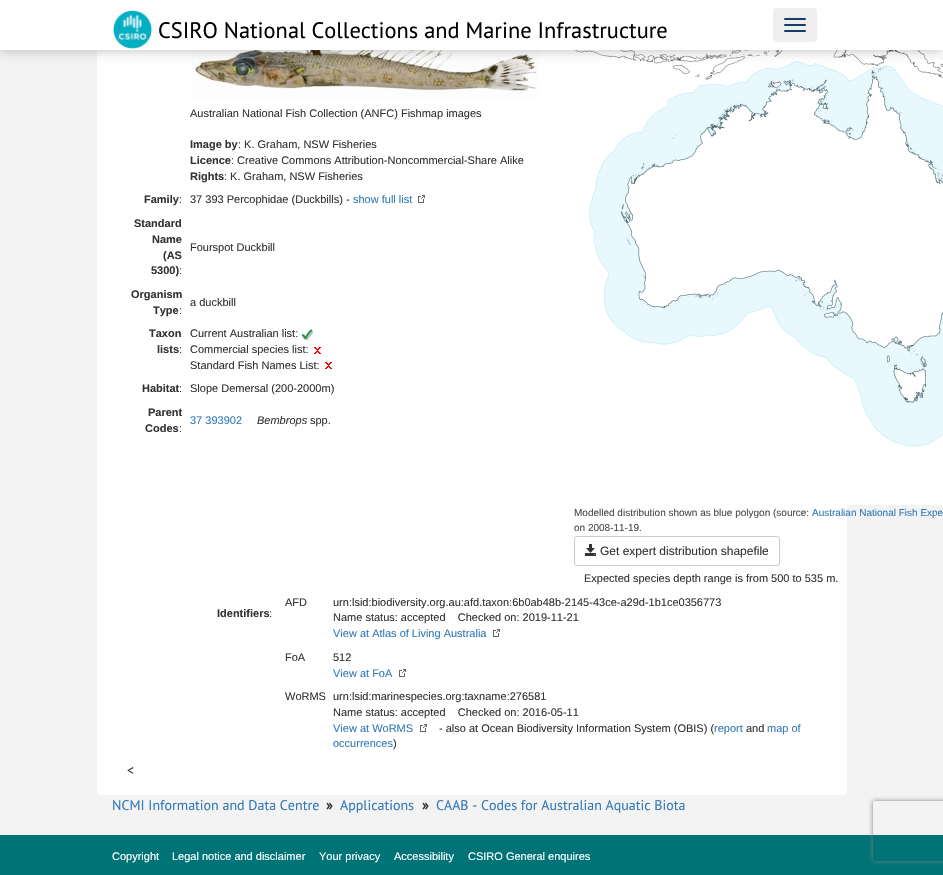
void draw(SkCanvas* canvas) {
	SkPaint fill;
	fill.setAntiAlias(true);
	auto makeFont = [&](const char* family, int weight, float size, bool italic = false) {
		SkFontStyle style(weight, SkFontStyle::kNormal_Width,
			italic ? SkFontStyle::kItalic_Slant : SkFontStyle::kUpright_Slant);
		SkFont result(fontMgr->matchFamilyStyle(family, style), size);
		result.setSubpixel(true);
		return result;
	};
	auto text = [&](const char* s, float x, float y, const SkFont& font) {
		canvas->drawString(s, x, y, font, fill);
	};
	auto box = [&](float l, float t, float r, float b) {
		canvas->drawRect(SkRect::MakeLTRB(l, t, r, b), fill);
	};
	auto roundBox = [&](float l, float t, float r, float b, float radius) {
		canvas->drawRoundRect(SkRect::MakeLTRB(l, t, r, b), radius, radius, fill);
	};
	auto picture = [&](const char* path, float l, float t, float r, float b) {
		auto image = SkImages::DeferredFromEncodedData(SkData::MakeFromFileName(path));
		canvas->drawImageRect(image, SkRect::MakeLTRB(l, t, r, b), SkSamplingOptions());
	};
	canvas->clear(0xFFF3F3F3);
	fill.setColor(0xFFFFFFFF);
	roundBox(97, -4, 847, 795, 4);
	picture("image1.png", 192, 50, 539, 98);
	picture("image5.png", 574, 50, 943, 505);
	fill.setColor(0x33000000);
	fill.setMaskFilter(SkMaskFilter::MakeBlur(kNormal_SkBlurStyle, 5));
	canvas->drawRect(SkRect::MakeLTRB(0, 2, 943, 52), fill);
	fill.setMaskFilter(nullptr);
	fill.setColor(0xFFFFFFFF);
	box(0, 0, 943, 50);
	picture("image0.png", 113, 10, 152, 49);
	fill.setColor(0xFFEEEEEE);
	roundBox(773, 8, 817, 42, 4);
	fill.setColor(0xFF153D6B);
	roundBox(784, 18, 806, 20, 1);
	roundBox(784, 24, 806, 26, 1);
	roundBox(784, 30, 806, 32, 1);
	picture("image2.png", 418, 195, 425, 203);
	picture("image3.png", 302, 329, 313, 340);
	picture("image4.png", 314, 347, 321, 354);
	picture("image4.png", 325, 362, 332, 369);
	fill.setStyle(SkPaint::kStroke_Style);
	fill.setStrokeWidth(1);
	fill.setColor(0xFFCCCCCC);
	canvas->drawRoundRect(SkRect::MakeLTRB(574.5f, 536.5f, 779.5f, 565.5f), 2.5f, 2.5f, fill);
	picture("image6.png", 585, 544, 596, 556);
	picture("image2.png", 493, 629, 500, 637);
	picture("image2.png", 399, 669, 406, 677);
	picture("image2.png", 420, 724, 427, 732);
	fill.setStyle(SkPaint::kFill_Style);
	fill.setColor(0xFF007377);
	box(0, 835, 943, 875);
	canvas->save();
	canvas->clipPath(SkPathBuilder(SkPathFillType::kEvenOdd).moveTo(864, 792).lineTo(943, 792).lineTo(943, 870).lineTo(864, 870).close().moveTo(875, 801).lineTo(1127, 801).cubicTo(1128, 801, 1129, 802, 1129, 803).lineTo(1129, 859).cubicTo(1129, 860, 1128, 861, 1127, 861).lineTo(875, 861).cubicTo(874, 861, 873, 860, 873, 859).lineTo(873, 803).cubicTo(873, 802, 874, 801, 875, 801).close().detach(), true);
	fill.setColor(0xFF808080);
	fill.setMaskFilter(SkMaskFilter::MakeBlur(kNormal_SkBlurStyle, 2.5f));
	canvas->drawRoundRect(SkRect::MakeLTRB(873, 801, 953, 861), 2, 2, fill);
	fill.setMaskFilter(nullptr);
	canvas->restore();
	auto font1 = makeFont("PT Sans", 400, 22.4f);
	fill.setColor(0xFF000000);
	text("CSIRO National Collections and Marine Infrastructure", 158, 38, font1);
	auto font2 = makeFont("Liberation Sans", 400, 11);
	fill.setColor(0xFF333333);
	text("Australian National Fish Collection (ANFC) Fishmap images", 190, 117, font2);
	auto font3 = makeFont("Liberation Sans", 700, 11);
	text("Image by", 190, 148, font3);
	text(": K. Graham, NSW Fisheries", 238, 148, font2);
	text("Licence", 190, 164, font3);
	text(": Creative Commons Attribution-Noncommercial-Share Alike", 231, 164, font2);
	text("Rights", 190, 180, font3);
	text(": K. Graham, NSW Fisheries", 224, 180, font2);
	text("Family", 144, 203, font3);
	text(":", 179, 203, font2);
	text("37 393 Percophidae (Duckbills) -", 190, 203, font2);
	fill.setColor(0xFF337AB7);
	text("show full list", 353, 203, font2);
	fill.setColor(0xFF333333);
	text("Standard", 134, 227, font3);
	text("Name", 152, 243, font3);
	text("(AS", 163, 259, font3);
	text("5300)", 151, 274, font3);
	text(":", 179, 274, font2);
	text("Fourspot Duckbill", 190, 251, font2);
	text("Organism", 131, 298, font3);
	text("Type", 153, 314, font3);
	text(":", 179, 314, font2);
	text("a duckbill", 190, 306, font2);
	text("Taxon", 149, 337, font3);
	text("lists", 157, 353, font3);
	text(":", 179, 353, font2);
	text("Current Australian list:", 190, 337, font2);
	text("Commercial species list:", 190, 353, font2);
	text("Standard Fish Names List:", 190, 369, font2);
	text("Habitat", 142, 392, font3);
	text(":", 179, 392, font2);
	text("Slope Demersal (200-2000m)", 190, 392, font2);
	text("Parent", 148, 416, font3);
	text("Codes", 145, 432, font3);
	text(":", 179, 432, font2);
	fill.setColor(0xFF337AB7);
	text("37 393902", 190, 424, font2);
	auto font4 = makeFont("Liberation Sans", 400, 11, true);
	fill.setColor(0xFF333333);
	text("Bembrops", 257, 424, font4);
	text("spp.", 310, 424, font2);
	auto font5 = makeFont("Liberation Sans", 400, 10);
	fill.setColor(0xFF4A4A4A);
	text("Modelled distribution shown as blue polygon (source:", 574, 516, font5);
	fill.setColor(0xFF337AB7);
	text("Australian National Fish Expe", 812, 516, font5);
	fill.setColor(0xFF4A4A4A);
	text("on 2008-11-19.", 574, 531, font5);
	auto font6 = makeFont("Liberation Sans", 400, 12);
	fill.setColor(0xFF333333);
	text("Get expert distribution shapefile", 600, 555, font6);
	text("Expected species depth range is from 500 to 535 m.", 584, 582, font2);
	text("Identifiers", 217, 617, font3);
	text(":", 269, 617, font2);
	text("AFD", 285, 606, font2);
	text("urn:lsid:biodiversity.org.au:afd.taxon:6b0ab48b-2145-43ce-a29d-1b1ce0356773", 333, 606, font2);
	text("Name status: accepted    Checked on: 2019-11-21", 333, 621, font2);
	fill.setColor(0xFF337AB7);
	text("View at Atlas of Living Australia", 333, 637, font2);
	fill.setColor(0xFF333333);
	text("FoA", 285, 661, font2);
	text("512", 333, 661, font2);
	fill.setColor(0xFF337AB7);
	text("View at FoA", 333, 677, font2);
	fill.setColor(0xFF333333);
	text("WoRMS", 285, 700, font2);
	text("urn:lsid:marinespecies.org:taxname:276581", 333, 700, font2);
	text("Name status: accepted    Checked on: 2016-05-11", 333, 716, font2);
	fill.setColor(0xFF337AB7);
	text("View at WoRMS", 333, 732, font2);
	fill.setColor(0xFF333333);
	text("- also at Ocean Biodiversity Information System (OBIS) (", 439, 732, font2);
	fill.setColor(0xFF337AB7);
	text("report", 714, 732, font2);
	fill.setColor(0xFF333333);
	text("and", 746, 732, font2);
	fill.setColor(0xFF337AB7);
	text("map of", 767, 732, font2);
	text("occurrences", 333, 747, font2);
	fill.setColor(0xFF333333);
	text(")", 393, 747, font2);
	auto font7 = makeFont("PT Sans", 400, 14);
	text("<", 127, 775, font7);
	fill.setColor(0xFF337AB7);
	text("NCMI Information and Data Centre", 112, 810, font7);
	auto font8 = makeFont("PT Sans", 700, 14);
	fill.setColor(0xFF333333);
	text("»", 326, 810, font8);
	fill.setColor(0xFF337AB7);
	text("Applications", 340, 810, font7);
	fill.setColor(0xFF333333);
	text("»", 422, 810, font8);
	fill.setColor(0xFF337AB7);
	text("CAAB - Codes for Australian Aquatic Biota", 436, 810, font7);
	fill.setColor(0xFFFFFFFF);
	text("Copyright", 112, 860, font2);
	text("Legal notice and disclaimer", 172, 860, font2);
	text("Your privacy", 319, 860, font2);
	text("Accessibility", 394, 860, font2);
	text("CSIRO General enquires", 468, 860, font2);
}
